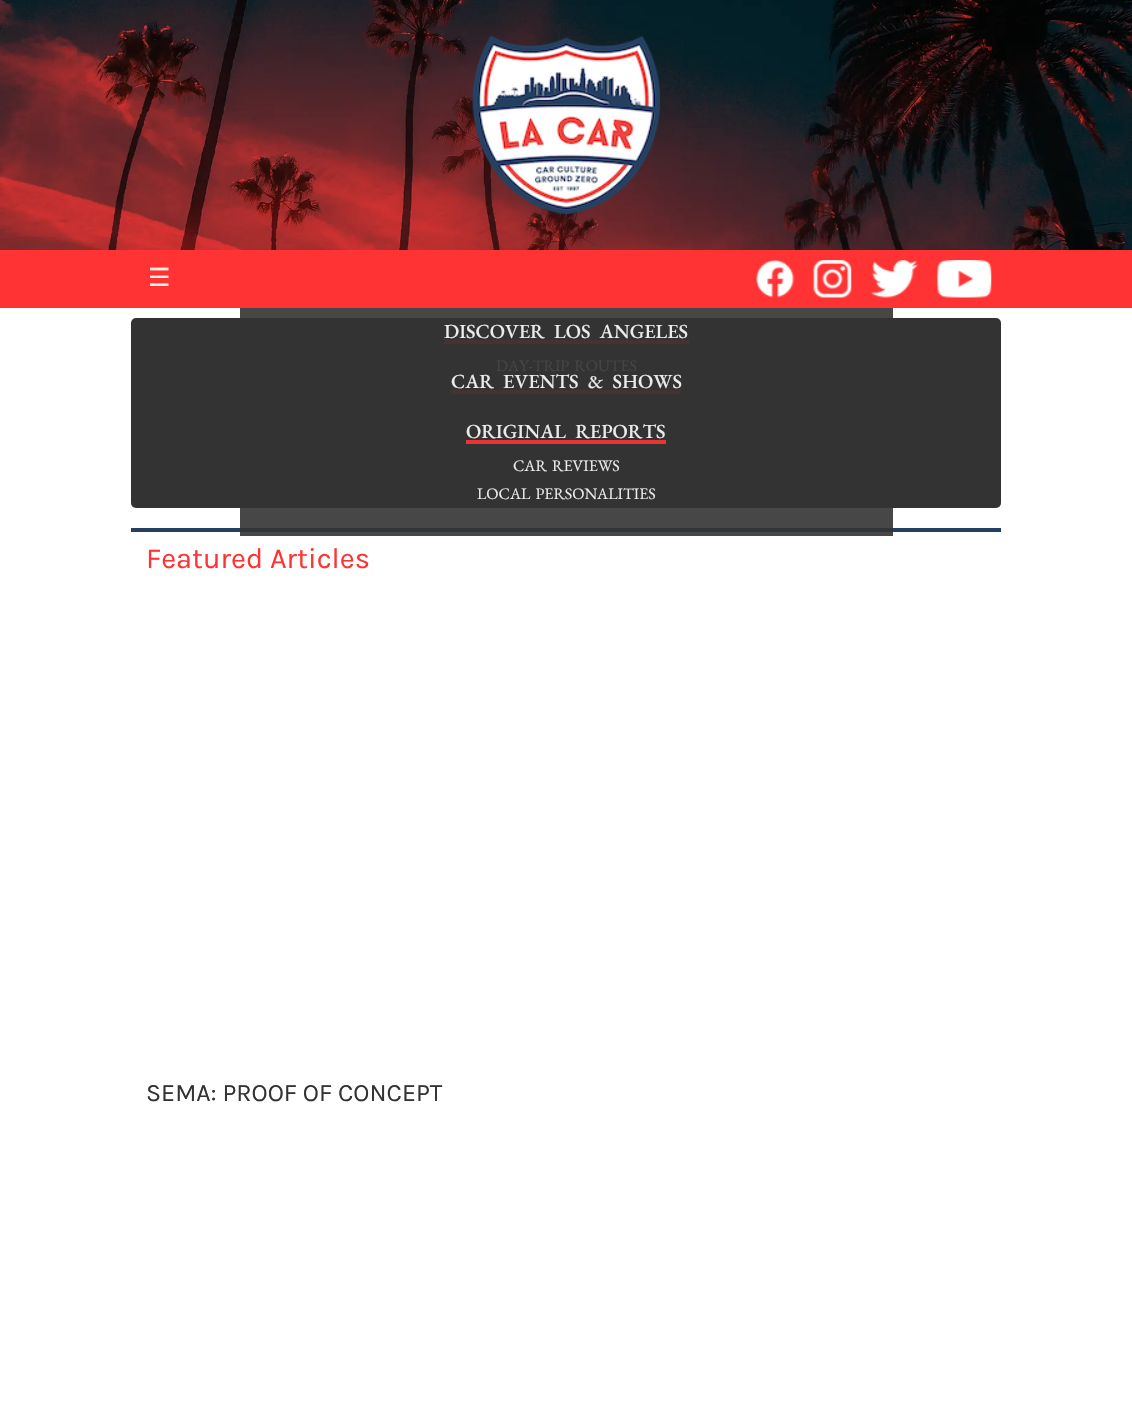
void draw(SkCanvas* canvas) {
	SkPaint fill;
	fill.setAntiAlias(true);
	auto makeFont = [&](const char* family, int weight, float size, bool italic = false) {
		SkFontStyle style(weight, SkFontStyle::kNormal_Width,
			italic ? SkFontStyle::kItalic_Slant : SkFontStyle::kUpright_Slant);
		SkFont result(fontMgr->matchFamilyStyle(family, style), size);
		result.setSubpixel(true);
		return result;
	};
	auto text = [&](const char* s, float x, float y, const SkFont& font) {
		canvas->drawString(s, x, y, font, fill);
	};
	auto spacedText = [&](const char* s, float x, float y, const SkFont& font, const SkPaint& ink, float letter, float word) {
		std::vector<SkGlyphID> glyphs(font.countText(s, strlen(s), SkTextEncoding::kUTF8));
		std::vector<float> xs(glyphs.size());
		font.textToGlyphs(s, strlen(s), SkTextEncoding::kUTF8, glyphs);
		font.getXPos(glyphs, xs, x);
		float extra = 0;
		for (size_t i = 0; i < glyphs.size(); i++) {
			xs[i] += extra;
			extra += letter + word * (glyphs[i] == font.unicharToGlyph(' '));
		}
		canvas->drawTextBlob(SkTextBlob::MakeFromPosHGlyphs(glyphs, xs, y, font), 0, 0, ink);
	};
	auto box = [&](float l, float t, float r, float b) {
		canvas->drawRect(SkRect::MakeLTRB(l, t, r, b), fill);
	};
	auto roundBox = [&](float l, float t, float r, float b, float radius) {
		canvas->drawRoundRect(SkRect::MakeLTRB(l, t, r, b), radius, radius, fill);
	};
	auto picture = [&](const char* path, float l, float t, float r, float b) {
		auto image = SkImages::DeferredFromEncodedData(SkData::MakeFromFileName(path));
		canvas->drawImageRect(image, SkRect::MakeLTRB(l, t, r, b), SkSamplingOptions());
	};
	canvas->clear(0xFFFFFFFF);
	fill.setColor(0xFF474747);
	box(240, 308, 893, 318);
	picture("image0.png", 0, 0, 1132, 250);
	picture("image1.png", 472, 35, 660, 215);
	fill.setColor(0xFFFF3333);
	box(0, 250, 1132, 308);
	picture("image2.png", 756, 260, 795, 298);
	picture("image3.png", 813, 260, 852, 298);
	picture("image4.png", 871, 260, 918, 298);
	picture("image5.png", 937, 260, 992, 298);
	fill.setColor(0xFF333333);
	roundBox(131, 318, 1001, 508, 5);
	fill.setColor(0xFF453333);
	box(444, 340, 689, 344);
	fill.setColor(0xE6FF3333);
	box(451, 390, 681, 394);
	fill.setColor(0xFF253F62);
	box(131, 528, 1001, 532);
	fill.setColor(0xE6333333);
	box(240, 390, 893, 536);
	fill.setColor(0xE6FF3333);
	box(466, 440, 666, 444);
	auto font1 = makeFont("DejaVu Sans", 400, 25);
	fill.setColor(0xFFF5EFE3);
	text("☰", 148, 286, font1);
	auto font2 = makeFont("EB Garamond", 500, 20);
	fill.setColor(0xFFEBEBEB);
	spacedText("DISCOVER LOS ANGELES", 444, 338, font2, fill, 0, 5);
	auto font3 = makeFont("EB Garamond", 400, 16);
	fill.setColor(0xFF454545);
	spacedText("DAY-TRIP ROUTES", 496, 371, font3, fill, 0, 2);
	fill.setColor(0xFFEBEBEB);
	spacedText("CAR EVENTS & SHOWS", 451, 388, font2, fill, 0, 5);
	spacedText("ORIGINAL REPORTS", 466, 438, font2, fill, 0, 5);
	spacedText("CAR REVIEWS", 513, 471, font3, fill, 0, 2);
	spacedText("LOCAL PERSONALITIES", 477, 499, font3, fill, 0, 2);
	auto font4 = makeFont("Karla", 400, 29);
	fill.setColor(0xFFFF3333);
	text("Featured Articles", 146, 568, font4);
	auto font5 = makeFont("Karla", 400, 25);
	fill.setColor(0xFF333333);
	text("SEMA: PROOF OF CONCEPT", 146, 1101, font5);
}
